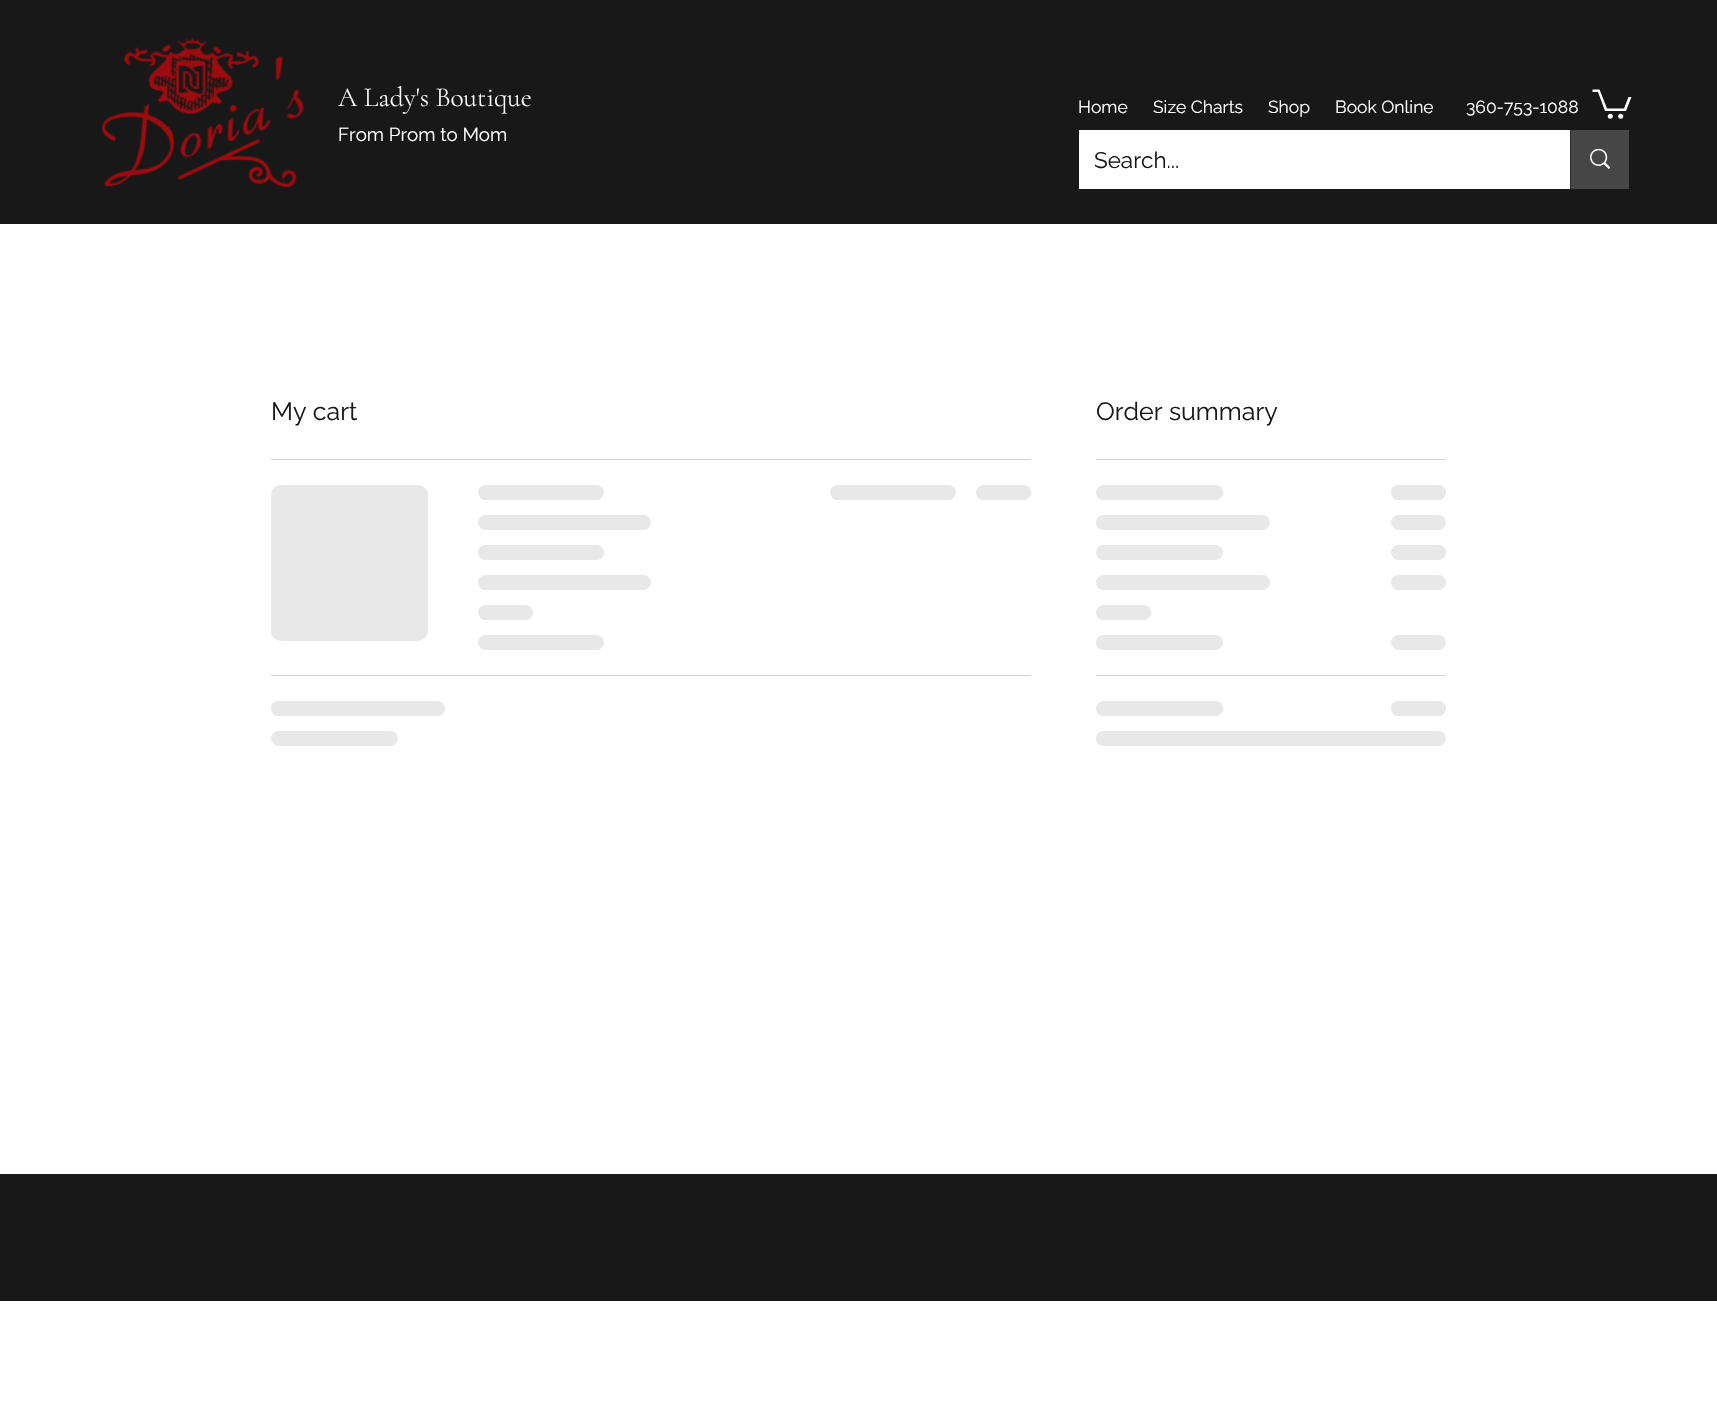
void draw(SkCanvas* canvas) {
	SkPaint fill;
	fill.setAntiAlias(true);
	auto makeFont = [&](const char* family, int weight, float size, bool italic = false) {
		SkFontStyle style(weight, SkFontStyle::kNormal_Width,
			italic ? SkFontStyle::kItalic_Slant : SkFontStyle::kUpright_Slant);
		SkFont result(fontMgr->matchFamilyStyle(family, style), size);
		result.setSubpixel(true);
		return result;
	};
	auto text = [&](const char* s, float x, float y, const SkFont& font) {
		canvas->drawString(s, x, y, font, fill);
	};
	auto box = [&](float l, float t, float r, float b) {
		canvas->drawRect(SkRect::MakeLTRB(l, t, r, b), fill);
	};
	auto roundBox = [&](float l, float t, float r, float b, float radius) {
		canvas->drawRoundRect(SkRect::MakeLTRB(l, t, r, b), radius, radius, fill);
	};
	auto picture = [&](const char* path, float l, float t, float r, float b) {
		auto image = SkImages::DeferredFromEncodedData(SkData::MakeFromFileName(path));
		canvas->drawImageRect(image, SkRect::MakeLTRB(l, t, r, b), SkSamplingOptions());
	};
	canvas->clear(0xFFFFFFFF);
	fill.setColor(0xFF181818);
	box(0, 0, 1717, 224);
	picture("image0.png", 101, 38, 304, 188);
	fill.setColor(0xFFFFFFFF);
	canvas->drawPath(SkPathBuilder().moveTo(1631.5f, 97).lineTo(1626, 111).lineTo(1605, 111).lineTo(1598, 92).lineTo(1592.5f, 92).lineTo(1592.5f, 89.5f).lineTo(1599.5f, 89.5f).lineTo(1607, 108.5f).lineTo(1624, 108.5f).lineTo(1628.5f, 97).detach(), fill);
	canvas->drawCircle(1620.7f, 116.2f, 2.5f, fill);
	canvas->drawCircle(1610.3f, 116.2f, 2.5f, fill);
	box(1079, 130, 1570, 189);
	fill.setColor(0xFF464646);
	box(1571, 130, 1629, 189);
	fill.setColor(0xFF2A2A2A);
	box(1570, 130, 1571, 189);
	picture("image1.png", 1590, 149, 1610, 169);
	fill.setColor(0xFFD1D1D1);
	box(271, 459, 1031, 460);
	{
		const SkColor colors[] = {0xFFE8E8E8, 0xFFD1D1D1, 0xFFE8E8E8};
		const float stops[] = {0.25f, 0.37f, 0.63f};
		const SkPoint ends[] = {{271, 563}, {896, 563}};
		fill.setShader(SkGradientShader::MakeLinear(ends, colors, stops, 3, SkTileMode::kClamp));
		fill.setAlpha(255);
	}
	roundBox(271, 485, 428, 641, 10);
	{
		const SkColor colors[] = {0xFFE8E8E8, 0xFFD1D1D1, 0xFFE8E8E8};
		const float stops[] = {0.25f, 0.37f, 0.63f};
		const SkPoint ends[] = {{478, 493}, {983, 493}};
		fill.setShader(SkGradientShader::MakeLinear(ends, colors, stops, 3, SkTileMode::kClamp));
		fill.setAlpha(255);
	}
	roundBox(478, 485, 604, 500, 7.5f);
	{
		const SkColor colors[] = {0xFFE8E8E8, 0xFFD1D1D1, 0xFFE8E8E8};
		const float stops[] = {0.25f, 0.37f, 0.63f};
		const SkPoint ends[] = {{478, 523}, {1173, 523}};
		fill.setShader(SkGradientShader::MakeLinear(ends, colors, stops, 3, SkTileMode::kClamp));
		fill.setAlpha(255);
	}
	roundBox(478, 515, 651, 530, 7.5f);
	{
		const SkColor colors[] = {0xFFE8E8E8, 0xFFD1D1D1, 0xFFE8E8E8};
		const float stops[] = {0.25f, 0.37f, 0.63f};
		const SkPoint ends[] = {{478, 553}, {983, 553}};
		fill.setShader(SkGradientShader::MakeLinear(ends, colors, stops, 3, SkTileMode::kClamp));
		fill.setAlpha(255);
	}
	roundBox(478, 545, 604, 560, 7.5f);
	{
		const SkColor colors[] = {0xFFE8E8E8, 0xFFD1D1D1, 0xFFE8E8E8};
		const float stops[] = {0.25f, 0.37f, 0.63f};
		const SkPoint ends[] = {{478, 583}, {1173, 583}};
		fill.setShader(SkGradientShader::MakeLinear(ends, colors, stops, 3, SkTileMode::kClamp));
		fill.setAlpha(255);
	}
	roundBox(478, 575, 651, 590, 7.5f);
	{
		const SkColor colors[] = {0xFFE8E8E8, 0xFFD1D1D1, 0xFFE8E8E8};
		const float stops[] = {0.25f, 0.37f, 0.63f};
		const SkPoint ends[] = {{478, 613}, {698, 613}};
		fill.setShader(SkGradientShader::MakeLinear(ends, colors, stops, 3, SkTileMode::kClamp));
		fill.setAlpha(255);
	}
	roundBox(478, 605, 533, 620, 7.5f);
	{
		const SkColor colors[] = {0xFFE8E8E8, 0xFFD1D1D1, 0xFFE8E8E8};
		const float stops[] = {0.25f, 0.37f, 0.63f};
		const SkPoint ends[] = {{478, 643}, {983, 643}};
		fill.setShader(SkGradientShader::MakeLinear(ends, colors, stops, 3, SkTileMode::kClamp));
		fill.setAlpha(255);
	}
	roundBox(478, 635, 604, 650, 7.5f);
	{
		const SkColor colors[] = {0xFFE8E8E8, 0xFFD1D1D1, 0xFFE8E8E8};
		const float stops[] = {0.25f, 0.37f, 0.63f};
		const SkPoint ends[] = {{830, 493}, {1335, 493}};
		fill.setShader(SkGradientShader::MakeLinear(ends, colors, stops, 3, SkTileMode::kClamp));
		fill.setAlpha(255);
	}
	roundBox(830, 485, 956, 500, 7.5f);
	{
		const SkColor colors[] = {0xFFE8E8E8, 0xFFD1D1D1, 0xFFE8E8E8};
		const float stops[] = {0.25f, 0.37f, 0.63f};
		const SkPoint ends[] = {{976, 493}, {1196, 493}};
		fill.setShader(SkGradientShader::MakeLinear(ends, colors, stops, 3, SkTileMode::kClamp));
		fill.setAlpha(255);
	}
	roundBox(976, 485, 1031, 500, 7.5f);
	fill.setShader(nullptr);
	fill.setColor(0xFFD1D1D1);
	box(271, 675, 1031, 676);
	{
		const SkColor colors[] = {0xFFE8E8E8, 0xFFD1D1D1, 0xFFE8E8E8};
		const float stops[] = {0.25f, 0.37f, 0.63f};
		const SkPoint ends[] = {{271, 709}, {966, 709}};
		fill.setShader(SkGradientShader::MakeLinear(ends, colors, stops, 3, SkTileMode::kClamp));
		fill.setAlpha(255);
	}
	roundBox(271, 701, 445, 716, 7.5f);
	{
		const SkColor colors[] = {0xFFE8E8E8, 0xFFD1D1D1, 0xFFE8E8E8};
		const float stops[] = {0.25f, 0.37f, 0.63f};
		const SkPoint ends[] = {{271, 739}, {776, 739}};
		fill.setShader(SkGradientShader::MakeLinear(ends, colors, stops, 3, SkTileMode::kClamp));
		fill.setAlpha(255);
	}
	roundBox(271, 731, 398, 746, 7.5f);
	fill.setShader(nullptr);
	fill.setColor(0xFFD1D1D1);
	box(1096, 459, 1446, 460);
	{
		const SkColor colors[] = {0xFFE8E8E8, 0xFFD1D1D1, 0xFFE8E8E8};
		const float stops[] = {0.25f, 0.37f, 0.63f};
		const SkPoint ends[] = {{1096, 493}, {1601, 493}};
		fill.setShader(SkGradientShader::MakeLinear(ends, colors, stops, 3, SkTileMode::kClamp));
		fill.setAlpha(255);
	}
	roundBox(1096, 485, 1223, 500, 7.5f);
	{
		const SkColor colors[] = {0xFFE8E8E8, 0xFFD1D1D1, 0xFFE8E8E8};
		const float stops[] = {0.25f, 0.37f, 0.63f};
		const SkPoint ends[] = {{1391, 493}, {1611, 493}};
		fill.setShader(SkGradientShader::MakeLinear(ends, colors, stops, 3, SkTileMode::kClamp));
		fill.setAlpha(255);
	}
	roundBox(1391, 485, 1446, 500, 7.5f);
	{
		const SkColor colors[] = {0xFFE8E8E8, 0xFFD1D1D1, 0xFFE8E8E8};
		const float stops[] = {0.25f, 0.37f, 0.63f};
		const SkPoint ends[] = {{1096, 523}, {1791, 523}};
		fill.setShader(SkGradientShader::MakeLinear(ends, colors, stops, 3, SkTileMode::kClamp));
		fill.setAlpha(255);
	}
	roundBox(1096, 515, 1270, 530, 7.5f);
	{
		const SkColor colors[] = {0xFFE8E8E8, 0xFFD1D1D1, 0xFFE8E8E8};
		const float stops[] = {0.25f, 0.37f, 0.63f};
		const SkPoint ends[] = {{1391, 523}, {1611, 523}};
		fill.setShader(SkGradientShader::MakeLinear(ends, colors, stops, 3, SkTileMode::kClamp));
		fill.setAlpha(255);
	}
	roundBox(1391, 515, 1446, 530, 7.5f);
	{
		const SkColor colors[] = {0xFFE8E8E8, 0xFFD1D1D1, 0xFFE8E8E8};
		const float stops[] = {0.25f, 0.37f, 0.63f};
		const SkPoint ends[] = {{1096, 553}, {1601, 553}};
		fill.setShader(SkGradientShader::MakeLinear(ends, colors, stops, 3, SkTileMode::kClamp));
		fill.setAlpha(255);
	}
	roundBox(1096, 545, 1223, 560, 7.5f);
	{
		const SkColor colors[] = {0xFFE8E8E8, 0xFFD1D1D1, 0xFFE8E8E8};
		const float stops[] = {0.25f, 0.37f, 0.63f};
		const SkPoint ends[] = {{1391, 553}, {1611, 553}};
		fill.setShader(SkGradientShader::MakeLinear(ends, colors, stops, 3, SkTileMode::kClamp));
		fill.setAlpha(255);
	}
	roundBox(1391, 545, 1446, 560, 7.5f);
	{
		const SkColor colors[] = {0xFFE8E8E8, 0xFFD1D1D1, 0xFFE8E8E8};
		const float stops[] = {0.25f, 0.37f, 0.63f};
		const SkPoint ends[] = {{1096, 583}, {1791, 583}};
		fill.setShader(SkGradientShader::MakeLinear(ends, colors, stops, 3, SkTileMode::kClamp));
		fill.setAlpha(255);
	}
	roundBox(1096, 575, 1270, 590, 7.5f);
	{
		const SkColor colors[] = {0xFFE8E8E8, 0xFFD1D1D1, 0xFFE8E8E8};
		const float stops[] = {0.25f, 0.37f, 0.63f};
		const SkPoint ends[] = {{1391, 583}, {1611, 583}};
		fill.setShader(SkGradientShader::MakeLinear(ends, colors, stops, 3, SkTileMode::kClamp));
		fill.setAlpha(255);
	}
	roundBox(1391, 575, 1446, 590, 7.5f);
	{
		const SkColor colors[] = {0xFFE8E8E8, 0xFFD1D1D1, 0xFFE8E8E8};
		const float stops[] = {0.25f, 0.37f, 0.63f};
		const SkPoint ends[] = {{1096, 613}, {1316, 613}};
		fill.setShader(SkGradientShader::MakeLinear(ends, colors, stops, 3, SkTileMode::kClamp));
		fill.setAlpha(255);
	}
	roundBox(1096, 605, 1151, 620, 7.5f);
	{
		const SkColor colors[] = {0xFFE8E8E8, 0xFFD1D1D1, 0xFFE8E8E8};
		const float stops[] = {0.25f, 0.37f, 0.63f};
		const SkPoint ends[] = {{1096, 643}, {1601, 643}};
		fill.setShader(SkGradientShader::MakeLinear(ends, colors, stops, 3, SkTileMode::kClamp));
		fill.setAlpha(255);
	}
	roundBox(1096, 635, 1223, 650, 7.5f);
	{
		const SkColor colors[] = {0xFFE8E8E8, 0xFFD1D1D1, 0xFFE8E8E8};
		const float stops[] = {0.25f, 0.37f, 0.63f};
		const SkPoint ends[] = {{1391, 643}, {1611, 643}};
		fill.setShader(SkGradientShader::MakeLinear(ends, colors, stops, 3, SkTileMode::kClamp));
		fill.setAlpha(255);
	}
	roundBox(1391, 635, 1446, 650, 7.5f);
	fill.setShader(nullptr);
	fill.setColor(0xFFD1D1D1);
	box(1096, 675, 1446, 676);
	{
		const SkColor colors[] = {0xFFE8E8E8, 0xFFD1D1D1, 0xFFE8E8E8};
		const float stops[] = {0.25f, 0.37f, 0.63f};
		const SkPoint ends[] = {{1096, 709}, {1601, 709}};
		fill.setShader(SkGradientShader::MakeLinear(ends, colors, stops, 3, SkTileMode::kClamp));
		fill.setAlpha(255);
	}
	roundBox(1096, 701, 1223, 716, 7.5f);
	{
		const SkColor colors[] = {0xFFE8E8E8, 0xFFD1D1D1, 0xFFE8E8E8};
		const float stops[] = {0.25f, 0.37f, 0.63f};
		const SkPoint ends[] = {{1391, 709}, {1611, 709}};
		fill.setShader(SkGradientShader::MakeLinear(ends, colors, stops, 3, SkTileMode::kClamp));
		fill.setAlpha(255);
	}
	roundBox(1391, 701, 1446, 716, 7.5f);
	{
		const SkColor colors[] = {0xFFE8E8E8, 0xFFD1D1D1, 0xFFE8E8E8};
		const float stops[] = {0.25f, 0.37f, 0.63f};
		const SkPoint ends[] = {{1096, 739}, {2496, 739}};
		fill.setShader(SkGradientShader::MakeLinear(ends, colors, stops, 3, SkTileMode::kClamp));
		fill.setAlpha(255);
	}
	roundBox(1096, 731, 1446, 746, 7.5f);
	fill.setShader(nullptr);
	fill.setColor(0xFF181818);
	box(0, 1174, 1717, 1301);
	auto font1 = makeFont("Cormorant Garamond", 300, 27.5f);
	fill.setColor(0xFFFFFFFF);
	text("A Lady's Boutique", 338, 106, font1);
	auto font2 = makeFont("Raleway", 400, 18.75f);
	text("From Prom to Mom", 338, 141, font2);
	auto font3 = makeFont("Raleway", 400, 17.5f);
	text("Home", 1078, 113, font3);
	text("Size Charts", 1153, 113, font3);
	text("Shop", 1268, 113, font3);
	text("Book Online", 1335, 113, font3);
	text("360-753-1088", 1466, 113, font3);
	auto font4 = makeFont("Raleway", 400, 22.5f);
	fill.setColor(0xFF181818);
	text("Search...", 1094, 168, font4);
	auto font5 = makeFont("Raleway", 400, 25);
	text("My cart", 271, 420, font5);
	text("Order summary", 1096, 420, font5);
}
